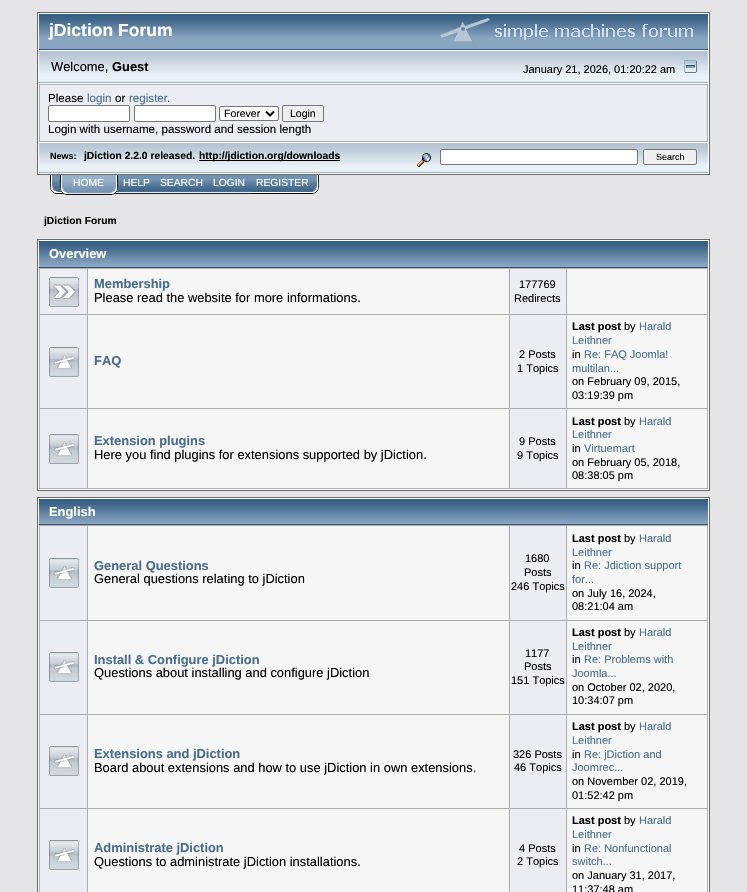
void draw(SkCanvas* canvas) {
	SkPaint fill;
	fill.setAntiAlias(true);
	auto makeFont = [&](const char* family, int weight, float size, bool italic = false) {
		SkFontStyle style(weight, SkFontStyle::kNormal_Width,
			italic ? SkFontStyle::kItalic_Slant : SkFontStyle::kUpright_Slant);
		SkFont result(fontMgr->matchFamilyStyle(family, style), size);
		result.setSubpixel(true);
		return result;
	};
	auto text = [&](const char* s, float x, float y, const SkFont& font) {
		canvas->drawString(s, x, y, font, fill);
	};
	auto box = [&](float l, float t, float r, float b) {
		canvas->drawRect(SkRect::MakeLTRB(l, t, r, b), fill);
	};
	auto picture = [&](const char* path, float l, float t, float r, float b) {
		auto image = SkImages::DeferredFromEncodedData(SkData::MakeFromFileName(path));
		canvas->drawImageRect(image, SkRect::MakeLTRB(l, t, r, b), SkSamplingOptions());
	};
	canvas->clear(0xFFE5E5E8);
	fill.setColor(0xFFFFFFFF);
	canvas->drawRect(SkRect::MakeLTRB(37.5f, 12.5f, 709.5f, 174.5f), fill);
	fill.setStyle(SkPaint::kStroke_Style);
	fill.setStrokeWidth(1);
	fill.setColor(0xFF696969);
	canvas->drawRect(SkRect::MakeLTRB(37.5f, 12.5f, 709.5f, 174.5f), fill);
	fill.setStyle(SkPaint::kFill_Style);
	fill.setColor(0xFF88A6C0);
	box(39, 38, 708, 49);
	picture("image0.png", 39, 14, 708, 38);
	fill.setColor(0xFF375576);
	box(39, 49, 708, 50);
	picture("image1.png", 440, 18, 693, 42);
	fill.setColor(0xFFE9F0F6);
	box(39, 73, 708, 82);
	picture("image2.png", 39, 51, 708, 73);
	fill.setColor(0xFF9BAEBF);
	box(39, 82, 708, 83);
	picture("image3.png", 684, 60, 697, 73);
	fill.setColor(0xFFADADAD);
	box(39, 84, 708, 142);
	fill.setColor(0xFFECEDF3);
	box(40, 85, 707, 141);
	fill.setColor(0xFFFFFFFF);
	canvas->drawRoundRect(SkRect::MakeLTRB(48.5f, 105.5f, 129.5f, 121.5f), 1.5f, 1.5f, fill);
	fill.setStyle(SkPaint::kStroke_Style);
	fill.setColor(0xFF767676);
	canvas->drawRoundRect(SkRect::MakeLTRB(48.5f, 105.5f, 129.5f, 121.5f), 1.5f, 1.5f, fill);
	fill.setStyle(SkPaint::kFill_Style);
	fill.setColor(0xFFFFFFFF);
	canvas->drawRoundRect(SkRect::MakeLTRB(134.5f, 105.5f, 215.5f, 121.5f), 1.5f, 1.5f, fill);
	fill.setStyle(SkPaint::kStroke_Style);
	fill.setColor(0xFF767676);
	canvas->drawRoundRect(SkRect::MakeLTRB(134.5f, 105.5f, 215.5f, 121.5f), 1.5f, 1.5f, fill);
	fill.setStyle(SkPaint::kFill_Style);
	fill.setColor(0xFFFFFFFF);
	canvas->drawRoundRect(SkRect::MakeLTRB(219.5f, 106.5f, 278.5f, 120.5f), 1.5f, 1.5f, fill);
	fill.setStyle(SkPaint::kStroke_Style);
	fill.setColor(0xFF767676);
	canvas->drawRoundRect(SkRect::MakeLTRB(219.5f, 106.5f, 278.5f, 120.5f), 1.5f, 1.5f, fill);
	fill.setStrokeWidth(2);
	fill.setColor(0xFF000000);
	canvas->drawPath(SkPathBuilder().moveTo(266, 111.5f).lineTo(270, 115.5f).lineTo(274, 111.5f).detach(), fill);
	fill.setStyle(SkPaint::kFill_Style);
	fill.setColor(0xFFEFEFEF);
	canvas->drawRoundRect(SkRect::MakeLTRB(282.5f, 105.5f, 323.5f, 121.5f), 1.5f, 1.5f, fill);
	fill.setStyle(SkPaint::kStroke_Style);
	fill.setStrokeWidth(1);
	fill.setColor(0xFF767676);
	canvas->drawRoundRect(SkRect::MakeLTRB(282.5f, 105.5f, 323.5f, 121.5f), 1.5f, 1.5f, fill);
	fill.setStyle(SkPaint::kFill_Style);
	fill.setColor(0xFFE9F0F6);
	box(39, 165, 708, 172);
	picture("image2.png", 39, 143, 708, 165);
	fill.setColor(0xFF9BAEBF);
	box(39, 172, 708, 173);
	fill.setColor(0xFF000000);
	box(199, 160, 340, 161);
	picture("image4.png", 417, 153, 431, 167);
	fill.setColor(0xFFFFFFFF);
	canvas->drawRoundRect(SkRect::MakeLTRB(440.5f, 149.5f, 637.5f, 164.5f), 1.5f, 1.5f, fill);
	fill.setStyle(SkPaint::kStroke_Style);
	fill.setColor(0xFF767676);
	canvas->drawRoundRect(SkRect::MakeLTRB(440.5f, 149.5f, 637.5f, 164.5f), 1.5f, 1.5f, fill);
	fill.setStyle(SkPaint::kFill_Style);
	fill.setColor(0xFFEFEFEF);
	canvas->drawRoundRect(SkRect::MakeLTRB(643.5f, 149.5f, 696.5f, 164.5f), 1.5f, 1.5f, fill);
	fill.setStyle(SkPaint::kStroke_Style);
	fill.setColor(0xFF767676);
	canvas->drawRoundRect(SkRect::MakeLTRB(643.5f, 149.5f, 696.5f, 164.5f), 1.5f, 1.5f, fill);
	picture("image5.png", 50, 175, 60, 194);
	picture("image6.png", 110, 175, 118, 195);
	picture("image7.png", 60, 175, 68, 195);
	picture("image8.png", 68, 175, 110, 195);
	picture("image9.png", 118, 175, 155, 195);
	picture("image10.png", 155, 175, 208, 195);
	picture("image11.png", 208, 175, 251, 195);
	picture("image12.png", 251, 175, 319, 194);
	fill.setStyle(SkPaint::kFill_Style);
	fill.setColor(0xFFFFFFFF);
	canvas->drawRect(SkRect::MakeLTRB(37.5f, 239.5f, 709.5f, 490.5f), fill);
	fill.setStyle(SkPaint::kStroke_Style);
	fill.setColor(0xFF696969);
	canvas->drawRect(SkRect::MakeLTRB(37.5f, 239.5f, 709.5f, 490.5f), fill);
	fill.setStyle(SkPaint::kFill_Style);
	fill.setColor(0xFF88A6C0);
	box(39, 265, 708, 267);
	picture("image0.png", 39, 241, 708, 265);
	fill.setColor(0xFF375576);
	box(39, 267, 708, 268);
	fill.setColor(0xFFADADAD);
	box(39, 268, 708, 489);
	fill.setColor(0xFFECEDF3);
	box(40, 269, 87, 314);
	picture("image13.png", 49, 277, 79, 307);
	fill.setColor(0xFFF6F6F6);
	box(88, 269, 509, 314);
	fill.setColor(0xFFECEDF3);
	box(510, 269, 566, 314);
	fill.setColor(0xFFF6F6F6);
	box(567, 269, 707, 314);
	fill.setColor(0xFFECEDF3);
	box(40, 315, 87, 408);
	picture("image14.png", 49, 347, 79, 377);
	fill.setColor(0xFFF6F6F6);
	box(88, 315, 509, 408);
	fill.setColor(0xFFECEDF3);
	box(510, 315, 566, 408);
	fill.setColor(0xFFF6F6F6);
	box(567, 315, 707, 408);
	fill.setColor(0xFFECEDF3);
	box(40, 409, 87, 488);
	picture("image14.png", 49, 434, 79, 464);
	fill.setColor(0xFFF6F6F6);
	box(88, 409, 509, 488);
	fill.setColor(0xFFECEDF3);
	box(510, 409, 566, 488);
	fill.setColor(0xFFF6F6F6);
	box(567, 409, 707, 488);
	fill.setColor(0xFFFFFFFF);
	canvas->drawRect(SkRect::MakeLTRB(37.5f, 497.5f, 709.5f, 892.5f), fill);
	fill.setStyle(SkPaint::kStroke_Style);
	fill.setColor(0xFF696969);
	canvas->drawRect(SkRect::MakeLTRB(37.5f, 497.5f, 709.5f, 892.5f), fill);
	fill.setStyle(SkPaint::kFill_Style);
	fill.setColor(0xFF88A6C0);
	box(39, 523, 708, 524);
	picture("image0.png", 39, 499, 708, 523);
	fill.setColor(0xFF375576);
	box(39, 524, 708, 525);
	fill.setColor(0xFFADADAD);
	box(39, 525, 708, 892);
	fill.setColor(0xFFECEDF3);
	box(40, 526, 87, 620);
	picture("image14.png", 49, 558, 79, 588);
	fill.setColor(0xFFF6F6F6);
	box(88, 526, 509, 620);
	fill.setColor(0xFFECEDF3);
	box(510, 526, 566, 620);
	fill.setColor(0xFFF6F6F6);
	box(567, 526, 707, 620);
	fill.setColor(0xFFECEDF3);
	box(40, 621, 87, 714);
	picture("image14.png", 49, 652, 79, 682);
	fill.setColor(0xFFF6F6F6);
	box(88, 621, 509, 714);
	fill.setColor(0xFFECEDF3);
	box(510, 621, 566, 714);
	fill.setColor(0xFFF6F6F6);
	box(567, 621, 707, 714);
	fill.setColor(0xFFECEDF3);
	box(40, 715, 87, 808);
	picture("image14.png", 49, 746, 79, 776);
	fill.setColor(0xFFF6F6F6);
	box(88, 715, 509, 808);
	fill.setColor(0xFFECEDF3);
	box(510, 715, 566, 808);
	fill.setColor(0xFFF6F6F6);
	box(567, 715, 707, 808);
	fill.setColor(0xFFECEDF3);
	box(40, 809, 87, 892);
	picture("image14.png", 49, 840, 79, 870);
	fill.setColor(0xFFF6F6F6);
	box(88, 809, 509, 892);
	fill.setColor(0xFFECEDF3);
	box(510, 809, 566, 892);
	fill.setColor(0xFFF6F6F6);
	box(567, 809, 707, 892);
	auto font1 = makeFont("Liberation Sans", 700, 17.5f);
	fill.setColor(0xFFFFFFFF);
	text("jDiction Forum", 49, 36, font1);
	auto font2 = makeFont("Liberation Sans", 400, 12.9f);
	fill.setColor(0xFF000000);
	text("Welcome,", 51, 71, font2);
	auto font3 = makeFont("Liberation Sans", 700, 12.9f);
	text("Guest", 112, 71, font3);
	auto font4 = makeFont("Liberation Sans", 400, 11);
	text("January 21, 2026, 01:20:22 am", 523, 73, font4);
	auto font5 = makeFont("Liberation Sans", 400, 11.6f);
	text("Please", 48, 102, font5);
	fill.setColor(0xFF476C8E);
	text("login", 87, 102, font5);
	fill.setColor(0xFF000000);
	text("or", 115, 102, font5);
	fill.setColor(0xFF476C8E);
	text("register", 129, 102, font5);
	fill.setColor(0xFF000000);
	text(".", 167, 102, font5);
	auto font6 = makeFont("Liberation Sans", 400, 10.5f);
	text("Forever", 224, 117, font6);
	text("Login", 290, 117, font6);
	text("Login with username, password and session length", 48, 133, font5);
	auto font7 = makeFont("Liberation Sans", 700, 9);
	text("News:", 50, 159, font7);
	auto font8 = makeFont("Liberation Sans", 700, 10.3f);
	text("jDiction 2.2.0 released.", 84, 159, font8);
	text("http://jdiction.org/downloads", 199, 159, font8);
	auto font9 = makeFont("Liberation Sans", 400, 9);
	text("Search", 656, 160, font9);
	auto font10 = makeFont("Liberation Sans", 400, 10.3f);
	fill.setColor(0xFFFFFFFF);
	text("HOME", 73, 186, font10);
	text("HELP", 123, 186, font10);
	text("SEARCH", 160, 186, font10);
	text("LOGIN", 213, 186, font10);
	text("REGISTER", 256, 186, font10);
	fill.setColor(0xFF000000);
	text("jDiction Forum", 44, 224, font8);
	fill.setColor(0xFFFFFFFF);
	text("Overview", 49, 258, font3);
	fill.setColor(0xFF476C8E);
	text("Membership", 94, 288, font3);
	fill.setColor(0xFF000000);
	text("Please read the website for more informations.", 94, 302, font2);
	text("177769", 519, 288, font4);
	text("Redirects", 514, 302, font4);
	fill.setColor(0xFF476C8E);
	text("FAQ", 94, 365, font3);
	fill.setColor(0xFF000000);
	text("2 Posts", 519, 358, font4);
	text("1 Topics", 517, 372, font4);
	auto font11 = makeFont("Liberation Sans", 700, 11);
	text("Last post", 572, 330, font11);
	text("by", 624, 330, font4);
	fill.setColor(0xFF476C8E);
	text("Harald", 639, 330, font4);
	text("Leithner", 572, 344, font4);
	fill.setColor(0xFF000000);
	text("in", 572, 358, font4);
	fill.setColor(0xFF476C8E);
	text("Re: FAQ Joomla!", 584, 358, font4);
	text("multilan...", 572, 372, font4);
	fill.setColor(0xFF000000);
	text("on February 09, 2015,", 572, 385, font4);
	text("03:19:39 pm", 572, 399, font4);
	fill.setColor(0xFF476C8E);
	text("Extension plugins", 94, 445, font3);
	fill.setColor(0xFF000000);
	text("Here you find plugins for extensions supported by jDiction.", 94, 459, font2);
	text("9 Posts", 519, 445, font4);
	text("9 Topics", 517, 459, font4);
	text("Last post", 572, 425, font11);
	text("by", 624, 425, font4);
	fill.setColor(0xFF476C8E);
	text("Harald", 639, 425, font4);
	text("Leithner", 572, 438, font4);
	fill.setColor(0xFF000000);
	text("in", 572, 452, font4);
	fill.setColor(0xFF476C8E);
	text("Virtuemart", 584, 452, font4);
	fill.setColor(0xFF000000);
	text("on February 05, 2018,", 572, 466, font4);
	text("08:38:05 pm", 572, 479, font4);
	fill.setColor(0xFFFFFFFF);
	text("English", 49, 516, font3);
	fill.setColor(0xFF476C8E);
	text("General Questions", 94, 570, font3);
	fill.setColor(0xFF000000);
	text("General questions relating to jDiction", 94, 583, font2);
	text("1680", 525, 562, font4);
	text("Posts", 524, 576, font4);
	text("246 Topics", 511, 590, font4);
	text("Last post", 572, 542, font11);
	text("by", 624, 542, font4);
	fill.setColor(0xFF476C8E);
	text("Harald", 639, 542, font4);
	text("Leithner", 572, 556, font4);
	fill.setColor(0xFF000000);
	text("in", 572, 569, font4);
	fill.setColor(0xFF476C8E);
	text("Re: Jdiction support", 584, 569, font4);
	text("for...", 572, 583, font4);
	fill.setColor(0xFF000000);
	text("on July 16, 2024,", 572, 597, font4);
	text("08:21:04 am", 572, 610, font4);
	fill.setColor(0xFF476C8E);
	text("Install & Configure jDiction", 94, 664, font3);
	fill.setColor(0xFF000000);
	text("Questions about installing and configure jDiction", 94, 677, font2);
	text("1177", 525, 657, font4);
	text("Posts", 524, 670, font4);
	text("151 Topics", 511, 684, font4);
	text("Last post", 572, 636, font11);
	text("by", 624, 636, font4);
	fill.setColor(0xFF476C8E);
	text("Harald", 639, 636, font4);
	text("Leithner", 572, 650, font4);
	fill.setColor(0xFF000000);
	text("in", 572, 663, font4);
	fill.setColor(0xFF476C8E);
	text("Re: Problems with", 584, 663, font4);
	text("Joomla...", 572, 677, font4);
	fill.setColor(0xFF000000);
	text("on October 02, 2020,", 572, 691, font4);
	text("10:34:07 pm", 572, 704, font4);
	fill.setColor(0xFF476C8E);
	text("Extensions and jDiction", 94, 758, font3);
	fill.setColor(0xFF000000);
	text("Board about extensions and how to use jDiction in own extensions.", 94, 772, font2);
	text("326 Posts", 513, 758, font4);
	text("46 Topics", 514, 771, font4);
	text("Last post", 572, 730, font11);
	text("by", 624, 730, font4);
	fill.setColor(0xFF476C8E);
	text("Harald", 639, 730, font4);
	text("Leithner", 572, 744, font4);
	fill.setColor(0xFF000000);
	text("in", 572, 758, font4);
	fill.setColor(0xFF476C8E);
	text("Re: jDiction and", 584, 758, font4);
	text("Joomrec...", 572, 771, font4);
	fill.setColor(0xFF000000);
	text("on November 02, 2019,", 572, 785, font4);
	text("01:52:42 pm", 572, 799, font4);
	fill.setColor(0xFF476C8E);
	text("Administrate jDiction", 94, 852, font3);
	fill.setColor(0xFF000000);
	text("Questions to administrate jDiction installations.", 94, 866, font2);
	text("4 Posts", 519, 852, font4);
	text("2 Topics", 517, 865, font4);
	text("Last post", 572, 824, font11);
	text("by", 624, 824, font4);
	fill.setColor(0xFF476C8E);
	text("Harald", 639, 824, font4);
	text("Leithner", 572, 838, font4);
	fill.setColor(0xFF000000);
	text("in", 572, 852, font4);
	fill.setColor(0xFF476C8E);
	text("Re: Nonfunctional", 584, 852, font4);
	text("switch...", 572, 865, font4);
	fill.setColor(0xFF000000);
	text("on January 31, 2017,", 572, 879, font4);
	text("11:37:48 am", 572, 893, font4);
}
